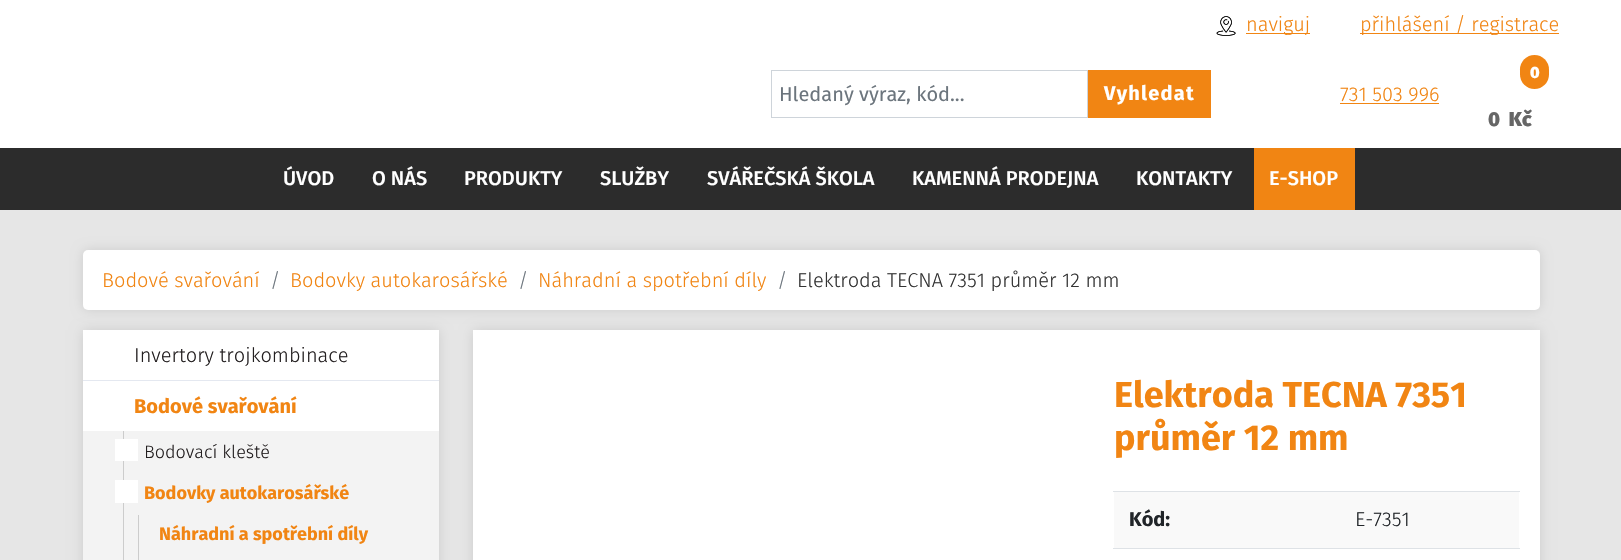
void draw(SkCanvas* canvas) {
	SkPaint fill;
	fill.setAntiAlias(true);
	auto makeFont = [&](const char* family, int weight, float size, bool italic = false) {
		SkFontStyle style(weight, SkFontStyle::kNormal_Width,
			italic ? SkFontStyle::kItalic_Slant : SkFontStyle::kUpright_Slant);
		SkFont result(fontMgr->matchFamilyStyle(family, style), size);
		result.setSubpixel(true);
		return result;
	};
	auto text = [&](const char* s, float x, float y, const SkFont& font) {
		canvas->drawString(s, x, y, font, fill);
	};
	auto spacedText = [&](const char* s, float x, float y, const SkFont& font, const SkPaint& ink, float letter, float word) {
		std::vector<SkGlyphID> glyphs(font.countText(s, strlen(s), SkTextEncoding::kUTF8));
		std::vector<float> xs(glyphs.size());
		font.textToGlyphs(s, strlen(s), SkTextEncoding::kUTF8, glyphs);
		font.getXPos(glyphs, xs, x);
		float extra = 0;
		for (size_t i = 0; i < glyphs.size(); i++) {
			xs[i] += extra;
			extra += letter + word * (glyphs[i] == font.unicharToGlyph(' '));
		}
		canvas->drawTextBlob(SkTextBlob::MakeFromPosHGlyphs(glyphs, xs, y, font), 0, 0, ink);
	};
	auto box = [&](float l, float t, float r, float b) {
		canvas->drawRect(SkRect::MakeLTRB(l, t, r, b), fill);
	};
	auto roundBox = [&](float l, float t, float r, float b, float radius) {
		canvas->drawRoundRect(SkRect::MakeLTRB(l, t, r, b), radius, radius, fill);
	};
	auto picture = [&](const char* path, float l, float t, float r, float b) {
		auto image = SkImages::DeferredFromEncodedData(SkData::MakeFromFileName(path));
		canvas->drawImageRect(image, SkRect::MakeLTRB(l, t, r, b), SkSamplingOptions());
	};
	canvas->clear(0xFFE6E6E6);
	fill.setColor(0xFFFFFFFF);
	box(0, 0, 1621, 148);
	picture("image0.png", 1216, 16, 1236, 36);
	fill.setColor(0xFFF18513);
	box(1246, 33, 1310, 34);
	box(1360, 33, 1559, 34);
	fill.setStyle(SkPaint::kStroke_Style);
	fill.setStrokeWidth(1);
	fill.setColor(0xFFCED4DA);
	canvas->drawRect(SkRect::MakeLTRB(771.5f, 70.5f, 1087.5f, 117.5f), fill);
	fill.setStyle(SkPaint::kFill_Style);
	fill.setColor(0xFFF18513);
	box(1088, 70, 1211, 118);
	box(1340, 103, 1439, 104);
	roundBox(1520, 55, 1549, 89, 14.5f);
	fill.setColor(0xFF2C2C2C);
	box(0, 148, 1621, 210);
	fill.setColor(0xFFF18513);
	box(1254, 148, 1355, 210);
	fill.setColor(0xFFCCCCCC);
	fill.setMaskFilter(SkMaskFilter::MakeBlur(kNormal_SkBlurStyle, 6));
	canvas->drawRoundRect(SkRect::MakeLTRB(83, 250, 1540, 310), 5, 5, fill);
	fill.setMaskFilter(nullptr);
	fill.setColor(0xFFFFFFFF);
	roundBox(83, 250, 1540, 310, 5);
	fill.setColor(0xFFCCCCCC);
	fill.setMaskFilter(SkMaskFilter::MakeBlur(kNormal_SkBlurStyle, 6));
	canvas->drawRect(SkRect::MakeLTRB(83, 330, 439, 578), fill);
	fill.setMaskFilter(nullptr);
	fill.setColor(0xFFFFFFFF);
	box(83, 330, 439, 380);
	fill.setColor(0xFFE4E8F0);
	box(83, 380, 439, 381);
	fill.setColor(0xFFF3F3F3);
	box(83, 431, 439, 560);
	fill.setColor(0xFFFFFFFF);
	box(83, 381, 439, 431);
	fill.setColor(0xFFCCCCCC);
	box(123, 431, 124, 560);
	fill.setColor(0xFFFFFFFF);
	box(115, 439, 138, 461);
	box(115, 480, 138, 503);
	fill.setColor(0xFFCCCCCC);
	box(138, 515, 139, 560);
	fill.setMaskFilter(SkMaskFilter::MakeBlur(kNormal_SkBlurStyle, 6));
	canvas->drawRect(SkRect::MakeLTRB(473, 330, 1540, 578), fill);
	fill.setMaskFilter(nullptr);
	fill.setColor(0xFFFFFFFF);
	box(473, 330, 1540, 560);
	fill.setColor(0xFFF9F9F9);
	box(1114, 492, 1519, 548);
	fill.setColor(0xFFDEE2E6);
	box(1113, 491, 1520, 492);
	box(1113, 548, 1520, 549);
	auto font1 = makeFont("Fira Sans", 300, 20);
	fill.setColor(0xFFF18513);
	text("naviguj", 1246, 31, font1);
	text("přihlášení / registrace", 1360, 31, font1);
	auto font2 = makeFont("Fira Sans", 400, 20);
	fill.setColor(0xFF6C757D);
	text("Hledaný výraz, kód...", 779, 101, font2);
	auto font3 = makeFont("Fira Sans", 700, 20);
	fill.setColor(0xFFFFFFFF);
	spacedText("Vyhledat", 1104, 100, font3, fill, 1.25f, 0);
	fill.setColor(0xFFF18513);
	text("731 503 996", 1340, 101, font1);
	auto font4 = makeFont("Fira Sans", 900, 16);
	fill.setColor(0xFFFFFFFF);
	text("0", 1530, 78, font4);
	auto font5 = makeFont("Fira Sans", 900, 20);
	fill.setColor(0xFF666666);
	text("0  Kč", 1488, 126, font5);
	auto font6 = makeFont("Fira Sans", 500, 20);
	fill.setColor(0xFFFFFFFF);
	text("ÚVOD", 283, 185, font6);
	text("O NÁS", 372, 185, font6);
	text("PRODUKTY", 464, 185, font6);
	text("SLUŽBY", 600, 185, font6);
	text("SVÁŘEČSKÁ ŠKOLA", 707, 185, font6);
	text("KAMENNÁ PRODEJNA", 912, 185, font6);
	text("KONTAKTY", 1136, 185, font6);
	text("E-SHOP", 1269, 185, font6);
	fill.setColor(0xFFF18513);
	text("Bodové svařování", 102, 287, font1);
	fill.setColor(0xFF6C757D);
	text("/", 270, 287, font1);
	fill.setColor(0xFFF18513);
	text("Bodovky autokarosářské", 290, 287, font1);
	fill.setColor(0xFF6C757D);
	text("/", 518, 287, font1);
	fill.setColor(0xFFF18513);
	text("Náhradní a spotřební díly", 538, 287, font1);
	fill.setColor(0xFF6C757D);
	text("/", 777, 287, font1);
	fill.setColor(0xFF333333);
	text("Elektroda TECNA 7351 průměr 12 mm", 797, 287, font1);
	fill.setColor(0xFF231F20);
	text("Invertory trojkombinace", 134, 362, font1);
	fill.setColor(0xFFF18513);
	text("Bodové svařování", 134, 413, font3);
	auto font7 = makeFont("Fira Sans", 300, 18);
	fill.setColor(0xFF231F20);
	text("Bodovací kleště", 144, 458, font7);
	auto font8 = makeFont("Fira Sans", 700, 18);
	fill.setColor(0xFFF18513);
	text("Bodovky autokarosářské", 144, 499, font8);
	text("Náhradní a spotřební díly", 159, 540, font8);
	auto font9 = makeFont("Fira Sans", 700, 36);
	text("Elektroda TECNA 7351", 1114, 407, font9);
	text("průměr 12 mm", 1114, 450, font9);
	fill.setColor(0xFF212529);
	text("Kód:", 1129, 526, font3);
	text("E-7351", 1355, 526, font1);
}
